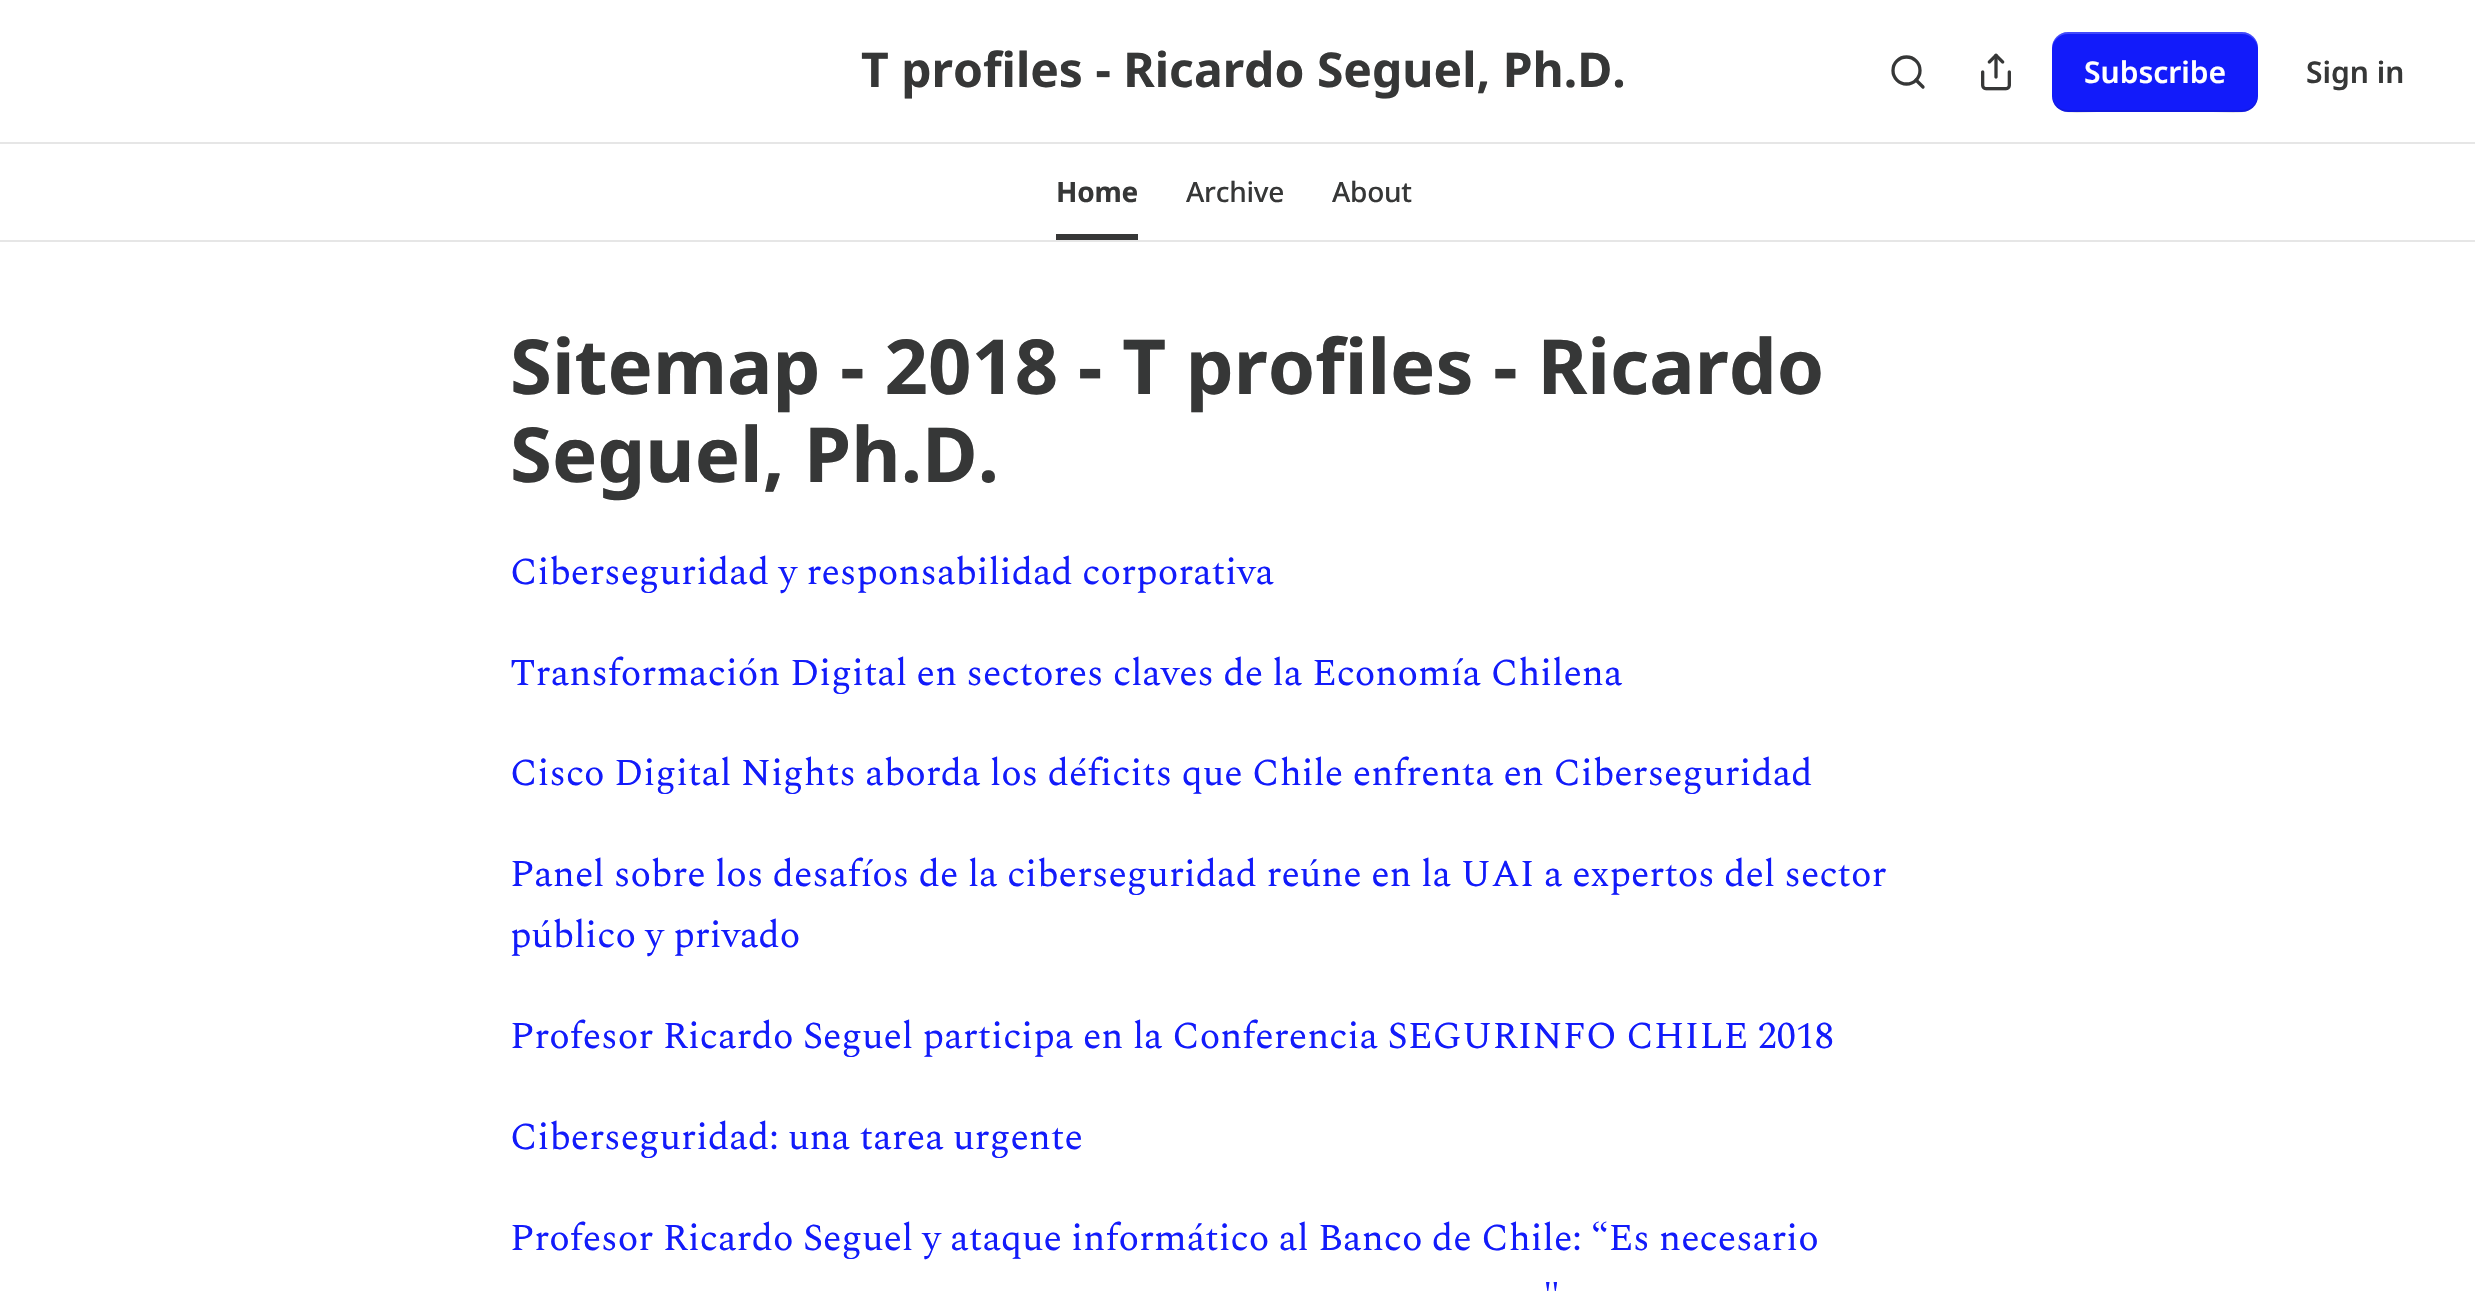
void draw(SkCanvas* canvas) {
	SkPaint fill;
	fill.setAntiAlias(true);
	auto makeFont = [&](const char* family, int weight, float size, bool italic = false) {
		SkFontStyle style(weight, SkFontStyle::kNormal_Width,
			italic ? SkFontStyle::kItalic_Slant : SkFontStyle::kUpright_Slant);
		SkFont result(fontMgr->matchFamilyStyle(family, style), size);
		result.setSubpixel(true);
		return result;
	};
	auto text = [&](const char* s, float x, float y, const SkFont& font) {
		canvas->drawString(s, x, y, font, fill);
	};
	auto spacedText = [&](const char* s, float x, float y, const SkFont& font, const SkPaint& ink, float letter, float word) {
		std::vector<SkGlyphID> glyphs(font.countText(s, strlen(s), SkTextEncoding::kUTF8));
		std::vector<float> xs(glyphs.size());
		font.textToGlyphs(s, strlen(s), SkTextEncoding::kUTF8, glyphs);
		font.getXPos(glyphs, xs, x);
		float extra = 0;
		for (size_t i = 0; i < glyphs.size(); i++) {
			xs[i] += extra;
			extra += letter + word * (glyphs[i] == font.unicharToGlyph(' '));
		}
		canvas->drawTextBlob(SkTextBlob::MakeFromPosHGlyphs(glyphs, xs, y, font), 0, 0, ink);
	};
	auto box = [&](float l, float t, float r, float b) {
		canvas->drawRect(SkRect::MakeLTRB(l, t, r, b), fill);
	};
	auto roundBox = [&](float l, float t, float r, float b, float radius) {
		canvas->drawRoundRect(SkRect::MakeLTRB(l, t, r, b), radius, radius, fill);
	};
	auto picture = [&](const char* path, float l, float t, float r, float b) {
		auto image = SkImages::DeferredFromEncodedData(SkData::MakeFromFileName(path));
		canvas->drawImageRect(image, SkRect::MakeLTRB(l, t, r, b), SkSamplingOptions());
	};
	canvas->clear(0xFFFFFFFF);
	fill.setStyle(SkPaint::kStroke_Style);
	fill.setStrokeWidth(3.3f);
	fill.setColor(0xFF363737);
	canvas->drawCircle(1906.5f, 70.5f, 13.5f, fill);
	fill.setStrokeCap(SkPaint::kRound_Cap);
	fill.setStrokeJoin(SkPaint::kRound_Join);
	canvas->drawPath(SkPathBuilder().moveTo(1923, 87).lineTo(1916, 80).detach(), fill);
	picture("image0.png", 1981, 53, 2011, 91);
	fill.setStyle(SkPaint::kFill_Style);
	fill.setColor(0xFF121BFA);
	roundBox(2052, 32, 2258, 112, 16);
	fill.setColor(0x1A000000);
	canvas->drawPath(SkPathBuilder().moveTo(2052, 94).cubicTo(2052, 119, 2081, 112, 2097, 112).lineTo(2213, 112).cubicTo(2229, 112, 2258, 119, 2258, 94).cubicTo(2258, 103, 2251, 110, 2242, 110).lineTo(2068, 110).cubicTo(2059, 110, 2052, 103, 2052, 94).close().detach(), fill);
	fill.setColor(0x33FFFFFF);
	canvas->drawPath(SkPathBuilder().moveTo(2068, 34).lineTo(2242, 34).cubicTo(2251, 34, 2258, 41, 2258, 50).cubicTo(2258, 25, 2229, 32, 2213, 32).lineTo(2097, 32).cubicTo(2081, 32, 2052, 25, 2052, 50).cubicTo(2052, 41, 2059, 34, 2068, 34).close().detach(), fill);
	fill.setColor(0xFFE6E6E6);
	box(0, 142, 2475, 144);
	box(0, 240, 2475, 242);
	fill.setColor(0xFF363737);
	box(1056, 234, 1138, 240);
	auto font1 = makeFont("Noto Sans", 700, 48);
	text("T profiles - Ricardo Seguel, Ph.D.", 861, 87, font1);
	auto font2 = makeFont("Noto Sans", 600, 30);
	fill.setColor(0xFFFFFFFF);
	text("Subscribe", 2084, 83, font2);
	fill.setColor(0xFF363737);
	text("Sign in", 2306, 83, font2);
	auto font3 = makeFont("Noto Sans", 700, 28);
	spacedText("Home", 1056, 202, font3, fill, -0.25f, 0);
	auto font4 = makeFont("Noto Sans", 500, 28);
	spacedText("Archive", 1186, 202, font4, fill, -0.25f, 0);
	spacedText("About", 1332, 202, font4, fill, -0.25f, 0);
	auto font5 = makeFont("Noto Sans", 700, 76);
	text("Sitemap - 2018 - T profiles - Ricardo", 510, 394, font5);
	text("Seguel, Ph.D.", 510, 482, font5);
	auto font6 = makeFont("Spectral", 400, 38);
	fill.setColor(0xFF121BFA);
	text("Ciberseguridad y responsabilidad corporativa", 510, 584, font6);
	text("Transformación Digital en sectores claves de la Economía Chilena", 510, 685, font6);
	text("Cisco Digital Nights aborda los déficits que Chile enfrenta en Ciberseguridad", 510, 785, font6);
	text("Panel sobre los desafíos de la ciberseguridad reúne en la UAI a expertos del sector", 510, 886, font6);
	text("público y privado", 510, 947, font6);
	text("Profesor Ricardo Seguel participa en la Conferencia SEGURINFO CHILE 2018", 510, 1048, font6);
	text("Ciberseguridad: una tarea urgente", 510, 1149, font6);
	text("Profesor Ricardo Seguel y ataque informático al Banco de Chile: “Es necesario", 510, 1250, font6);
	text("\"", 1543, 1310, font6);
}
